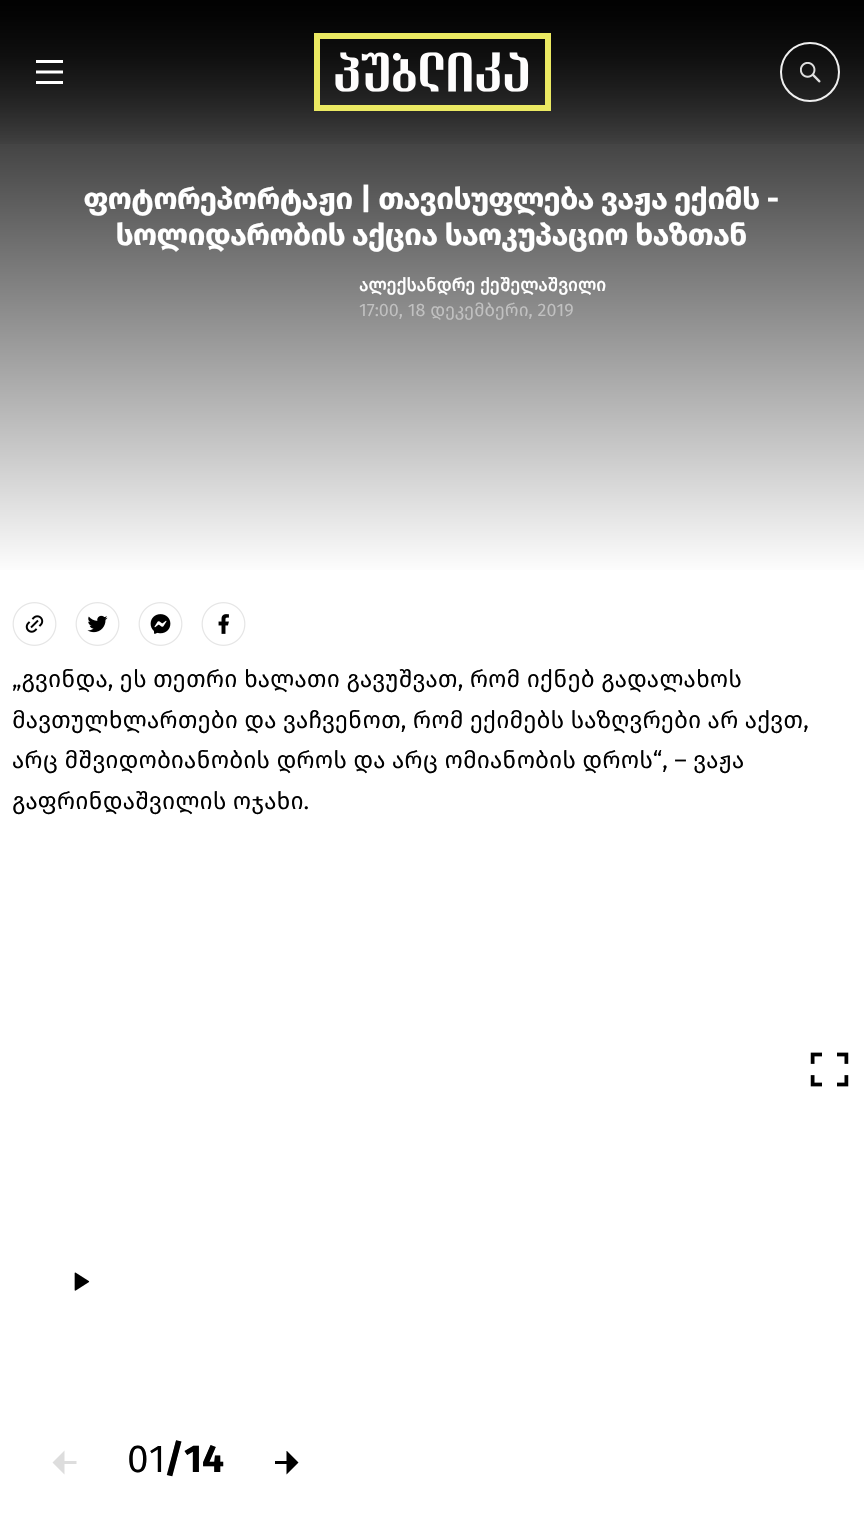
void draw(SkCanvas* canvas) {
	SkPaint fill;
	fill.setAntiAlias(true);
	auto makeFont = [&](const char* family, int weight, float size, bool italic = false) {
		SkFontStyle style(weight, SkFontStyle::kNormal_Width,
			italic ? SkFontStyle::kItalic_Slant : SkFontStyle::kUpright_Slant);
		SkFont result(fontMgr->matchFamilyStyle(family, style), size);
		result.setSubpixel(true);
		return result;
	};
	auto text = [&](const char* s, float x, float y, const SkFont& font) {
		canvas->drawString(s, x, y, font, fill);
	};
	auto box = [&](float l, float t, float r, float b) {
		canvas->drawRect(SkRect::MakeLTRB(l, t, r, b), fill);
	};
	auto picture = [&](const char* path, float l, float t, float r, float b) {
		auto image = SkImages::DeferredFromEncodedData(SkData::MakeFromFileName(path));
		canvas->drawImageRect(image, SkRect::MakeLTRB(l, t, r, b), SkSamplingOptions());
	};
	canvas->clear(0xFFFFFFFF);
	{
		const SkColor colors[] = {0xFFFFFFFF, 0xFF000000};
		const float stops[] = {0, 1};
		const SkPoint ends[] = {{432, 576}, {432, -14}};
		fill.setShader(SkGradientShader::MakeLinear(ends, colors, stops, 2, SkTileMode::kClamp));
		fill.setAlpha(255);
	}
	box(0, 0, 864, 570);
	{
		const SkColor colors[] = {0x00000000, 0xFF000000};
		const float stops[] = {0, 1};
		const SkPoint ends[] = {{432, 156}, {432, -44}};
		fill.setShader(SkGradientShader::MakeLinear(ends, colors, stops, 2, SkTileMode::kClamp));
		fill.setAlpha(255);
	}
	box(0, 0, 864, 144);
	picture("image0.png", 36, 60, 63, 84);
	fill.setStyle(SkPaint::kStroke_Style);
	fill.setStrokeWidth(6);
	fill.setShader(nullptr);
	fill.setColor(0xFFEBE962);
	canvas->drawRect(SkRect::MakeLTRB(317, 36, 548, 108), fill);
	picture("image1.png", 335, 52, 529, 92);
	fill.setStrokeWidth(2);
	fill.setColor(0xFFEFEFEF);
	canvas->drawCircle(810, 72, 29, fill);
	picture("image2.png", 800, 62, 821, 83);
	picture("image3.png", 12, 602, 57, 646);
	picture("image4.png", 75, 602, 120, 646);
	picture("image5.png", 138, 602, 183, 646);
	picture("image6.png", 201, 602, 246, 646);
	picture("image7.png", 810, 1052, 849, 1087);
	picture("image8.png", 74, 1272, 90, 1291);
	fill.setStyle(SkPaint::kFill_Style);
	fill.setColor(0xFFDDDDDD);
	canvas->drawPath(SkPathBuilder().moveTo(64.5f, 1464).lineTo(76.5f, 1464).lineTo(76.5f, 1461).lineTo(64.5f, 1461).lineTo(64.5f, 1450.5f).lineTo(52.5f, 1462.5f).lineTo(64.5f, 1474.5f).close().detach(), fill);
	canvas->save();
	canvas->clipRect(SkRect::MakeLTRB(275, 1451, 299, 1475));
	fill.setColor(0xFF000000);
	canvas->drawPath(SkPathBuilder().moveTo(286.5f, 1464).lineTo(274.5f, 1464).lineTo(274.5f, 1461).lineTo(286.5f, 1461).lineTo(286.5f, 1450.5f).lineTo(298.5f, 1462.5f).lineTo(286.5f, 1474.5f).close().detach(), fill);
	canvas->restore();
	auto font1 = makeFont("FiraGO", 700, 30);
	fill.setColor(0xFFFFFFFF);
	text("ფოტორეპორტაჟი | თავისუფლება ვაჟა ექიმს -", 84, 209, font1);
	text("სოლიდარობის აქცია საოკუპაციო ხაზთან", 116, 245, font1);
	auto font2 = makeFont("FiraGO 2", 700, 18);
	text("ალექსანდრე ქეშელაშვილი", 359, 291, font2);
	auto font3 = makeFont("FiraGO", 400, 18);
	fill.setColor(0xFFC1C1C1);
	text("17:00, 18 დეკემბერი, 2019", 359, 316, font3);
	auto font4 = makeFont("FiraGO", 400, 24);
	fill.setColor(0xFF000000);
	text("„გვინდა, ეს თეთრი ხალათი გავუშვათ, რომ იქნებ გადალახოს", 12, 687, font4);
	text("მავთულხლართები და ვაჩვენოთ, რომ ექიმებს საზღვრები არ აქვთ,", 12, 728, font4);
	text("არც მშვიდობიანობის დროს და არც ომიანობის დროს“, – ვაჟა", 12, 768, font4);
	text("გაფრინდაშვილის ოჯახი.", 12, 809, font4);
	auto font5 = makeFont("FiraGO", 400, 39);
	text("01", 127, 1472, font5);
	auto font6 = makeFont("FiraGO", 700, 39);
	text("/", 164, 1472, font6);
	text("14", 184, 1472, font6);
}
